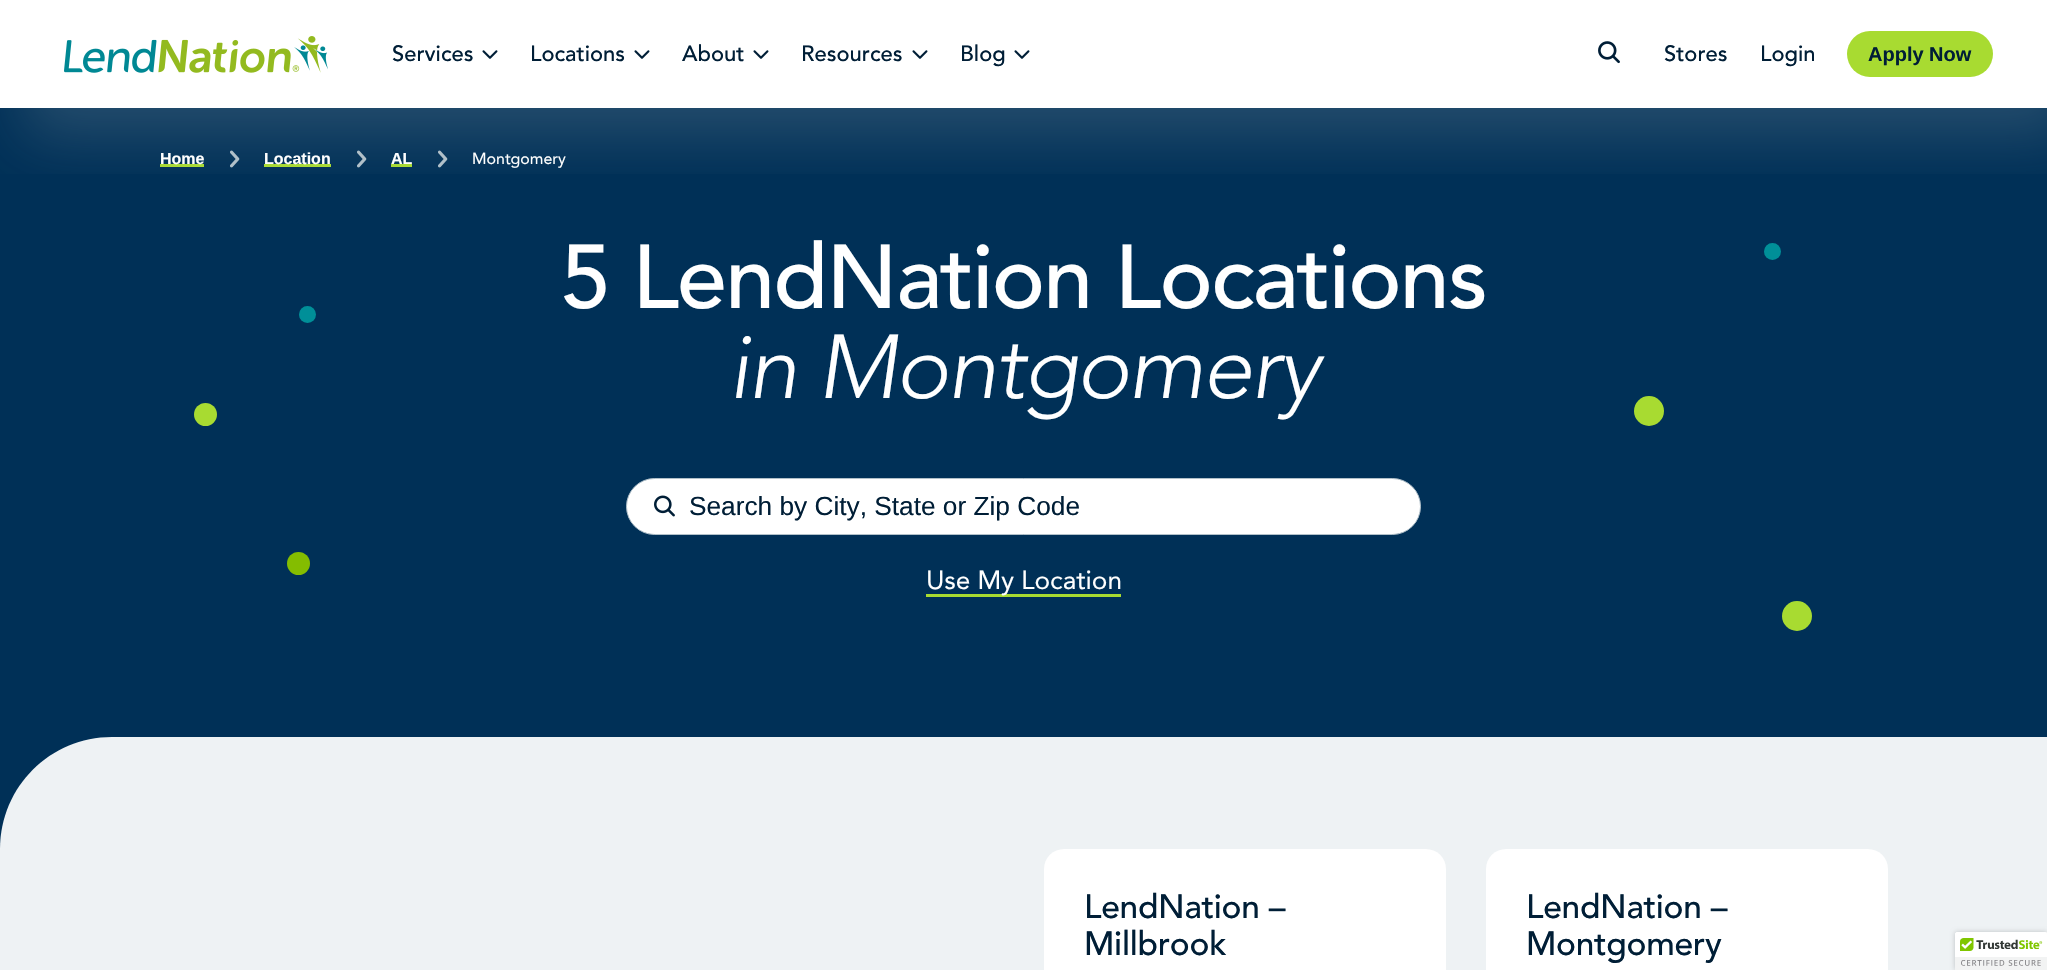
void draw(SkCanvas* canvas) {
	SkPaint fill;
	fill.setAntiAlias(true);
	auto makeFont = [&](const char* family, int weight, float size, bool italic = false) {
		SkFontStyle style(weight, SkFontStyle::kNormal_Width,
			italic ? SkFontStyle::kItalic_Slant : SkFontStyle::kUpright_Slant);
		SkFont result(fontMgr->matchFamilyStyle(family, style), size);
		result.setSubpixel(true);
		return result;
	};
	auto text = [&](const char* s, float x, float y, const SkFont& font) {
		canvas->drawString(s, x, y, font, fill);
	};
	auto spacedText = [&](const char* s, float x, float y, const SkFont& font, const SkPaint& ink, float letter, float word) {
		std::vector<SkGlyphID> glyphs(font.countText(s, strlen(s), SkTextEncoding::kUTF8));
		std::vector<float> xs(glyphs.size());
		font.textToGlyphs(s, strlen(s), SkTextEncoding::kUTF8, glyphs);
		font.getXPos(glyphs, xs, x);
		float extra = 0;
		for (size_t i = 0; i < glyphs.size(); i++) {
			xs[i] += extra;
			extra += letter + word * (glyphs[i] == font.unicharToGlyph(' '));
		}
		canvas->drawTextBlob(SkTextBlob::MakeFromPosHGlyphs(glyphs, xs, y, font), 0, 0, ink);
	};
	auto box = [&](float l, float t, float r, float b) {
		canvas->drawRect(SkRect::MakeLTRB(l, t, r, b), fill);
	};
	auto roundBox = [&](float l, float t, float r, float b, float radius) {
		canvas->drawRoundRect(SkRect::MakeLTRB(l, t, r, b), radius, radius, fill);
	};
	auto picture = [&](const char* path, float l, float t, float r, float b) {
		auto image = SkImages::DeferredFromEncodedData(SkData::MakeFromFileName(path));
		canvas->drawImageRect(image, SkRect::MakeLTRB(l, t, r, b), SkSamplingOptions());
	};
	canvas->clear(0xFFFFFFFF);
	fill.setColor(0xFF003057);
	box(0, 108, 2047, 849);
	fill.setColor(0xFFA8DB31);
	box(160, 164, 204, 167);
	picture("image3.png", 230, 150, 240, 168);
	box(264, 164, 331, 167);
	picture("image3.png", 357, 150, 367, 168);
	box(391, 164, 412, 167);
	picture("image3.png", 438, 150, 448, 168);
	canvas->save();
	canvas->clipRect(SkRect::MakeLTRB(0, 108, 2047, 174));
	fill.setColor(0x33B3BFC3);
	fill.setMaskFilter(SkMaskFilter::MakeBlur(kNormal_SkBlurStyle, 30));
	canvas->drawRect(SkRect::MakeLTRB(25, 28, 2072, 136), fill);
	fill.setMaskFilter(nullptr);
	canvas->restore();
	picture("image0.png", 64, 36, 328, 73);
	picture("image1.png", 482, 50, 498, 59);
	picture("image1.png", 634, 50, 650, 59);
	picture("image1.png", 753, 50, 769, 59);
	picture("image1.png", 912, 50, 928, 59);
	picture("image1.png", 1014, 50, 1030, 59);
	picture("image2.png", 1598, 41, 1620, 64);
	fill.setColor(0xFFA8DB31);
	roundBox(1847, 31, 1993, 77, 23);
	fill.setColor(0xFF008F98);
	canvas->drawCircle(1772.5f, 251.5f, 8.5f, fill);
	canvas->drawCircle(307.5f, 314.5f, 8.5f, fill);
	fill.setColor(0xFFA8DB31);
	canvas->drawCircle(205.5f, 414.5f, 11.5f, fill);
	canvas->drawCircle(1649, 411, 15, fill);
	fill.setColor(0xFF84BD00);
	canvas->drawCircle(298.5f, 563.5f, 11.5f, fill);
	fill.setColor(0xFFA8DB31);
	canvas->drawCircle(1797, 616, 15, fill);
	fill.setColor(0xFFFFFFFF);
	canvas->drawRoundRect(SkRect::MakeLTRB(626.5f, 478.5f, 1420.5f, 534.5f), 28, 28, fill);
	fill.setStyle(SkPaint::kStroke_Style);
	fill.setStrokeWidth(1);
	fill.setColor(0xFFB1C0C9);
	canvas->drawRoundRect(SkRect::MakeLTRB(626.5f, 478.5f, 1420.5f, 534.5f), 28, 28, fill);
	picture("image4.png", 654, 495, 675, 517);
	fill.setStyle(SkPaint::kFill_Style);
	fill.setColor(0xFFA8DB31);
	box(926, 594, 1121, 597);
	fill.setColor(0xFFEEF2F4);
	canvas->drawPath(SkPathBuilder().moveTo(112, 737).lineTo(2047, 737).lineTo(2047, 849).lineTo(0, 849).cubicTo(0, 787, 50, 737, 112, 737).close().detach(), fill);
	box(0, 849, 2047, 970);
	fill.setColor(0xFFFFFFFF);
	roundBox(1044, 849, 1446, 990, 20);
	roundBox(1486, 849, 1888, 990, 20);
	fill.setColor(0x33000000);
	fill.setMaskFilter(SkMaskFilter::MakeBlur(kNormal_SkBlurStyle, 2.5f));
	canvas->drawRoundRect(SkRect::MakeLTRB(1955, 932, 2047, 970), 2, 2, fill);
	fill.setMaskFilter(nullptr);
	fill.setColor(0xFFFFFFFF);
	canvas->drawPath(SkPathBuilder().moveTo(1957, 932).lineTo(2047, 932).lineTo(2047, 970).lineTo(1955, 970).lineTo(1955, 934).cubicTo(1955, 933, 1956, 932, 1957, 932).close().detach(), fill);
	picture("image5.png", 1955, 932, 2047, 970);
	auto font1 = makeFont("Avenir", 500, 22);
	fill.setColor(0xFF001E36);
	text("Services", 392, 61, font1);
	text("Locations", 530, 61, font1);
	text("About", 682, 61, font1);
	text("Resources", 801, 61, font1);
	text("Blog", 960, 61, font1);
	text("Stores", 1664, 61, font1);
	text("Login", 1760, 61, font1);
	auto font2 = makeFont("Liberation Sans", 700, 20);
	text("Apply Now", 1868, 61, font2);
	auto font3 = makeFont("Liberation Sans", 700, 16);
	fill.setColor(0xFFFFFFFF);
	text("Home", 160, 164, font3);
	text("Location", 264, 164, font3);
	text("AL", 391, 164, font3);
	auto font4 = makeFont("Avenir", 400, 16);
	text("Montgomery", 472, 164, font4);
	auto font5 = makeFont("Avenir", 500, 89.75f);
	spacedText("5 LendNation Locations", 561, 308, font5, fill, -1.8f, 0);
	auto font6 = makeFont("Avenir", 300, 89.75f, true);
	spacedText("in Montgomery", 728, 398, font6, fill, -1.8f, 0);
	auto font7 = makeFont("Liberation Sans", 400, 26.25f);
	fill.setColor(0xFF001E36);
	text("Search by City, State or Zip Code", 689, 515, font7);
	auto font8 = makeFont("Avenir", 400, 26.25f);
	fill.setColor(0xFFFFFFFF);
	text("Use My Location", 926, 589, font8);
	auto font9 = makeFont("Avenir", 500, 33.5f);
	fill.setColor(0xFF001E36);
	spacedText("LendNation –", 1084, 918, font9, fill, -0.25f, 0);
	spacedText("Millbrook", 1084, 955, font9, fill, -0.25f, 0);
	spacedText("LendNation –", 1526, 918, font9, fill, -0.25f, 0);
	spacedText("Montgomery", 1526, 955, font9, fill, -0.25f, 0);
}
